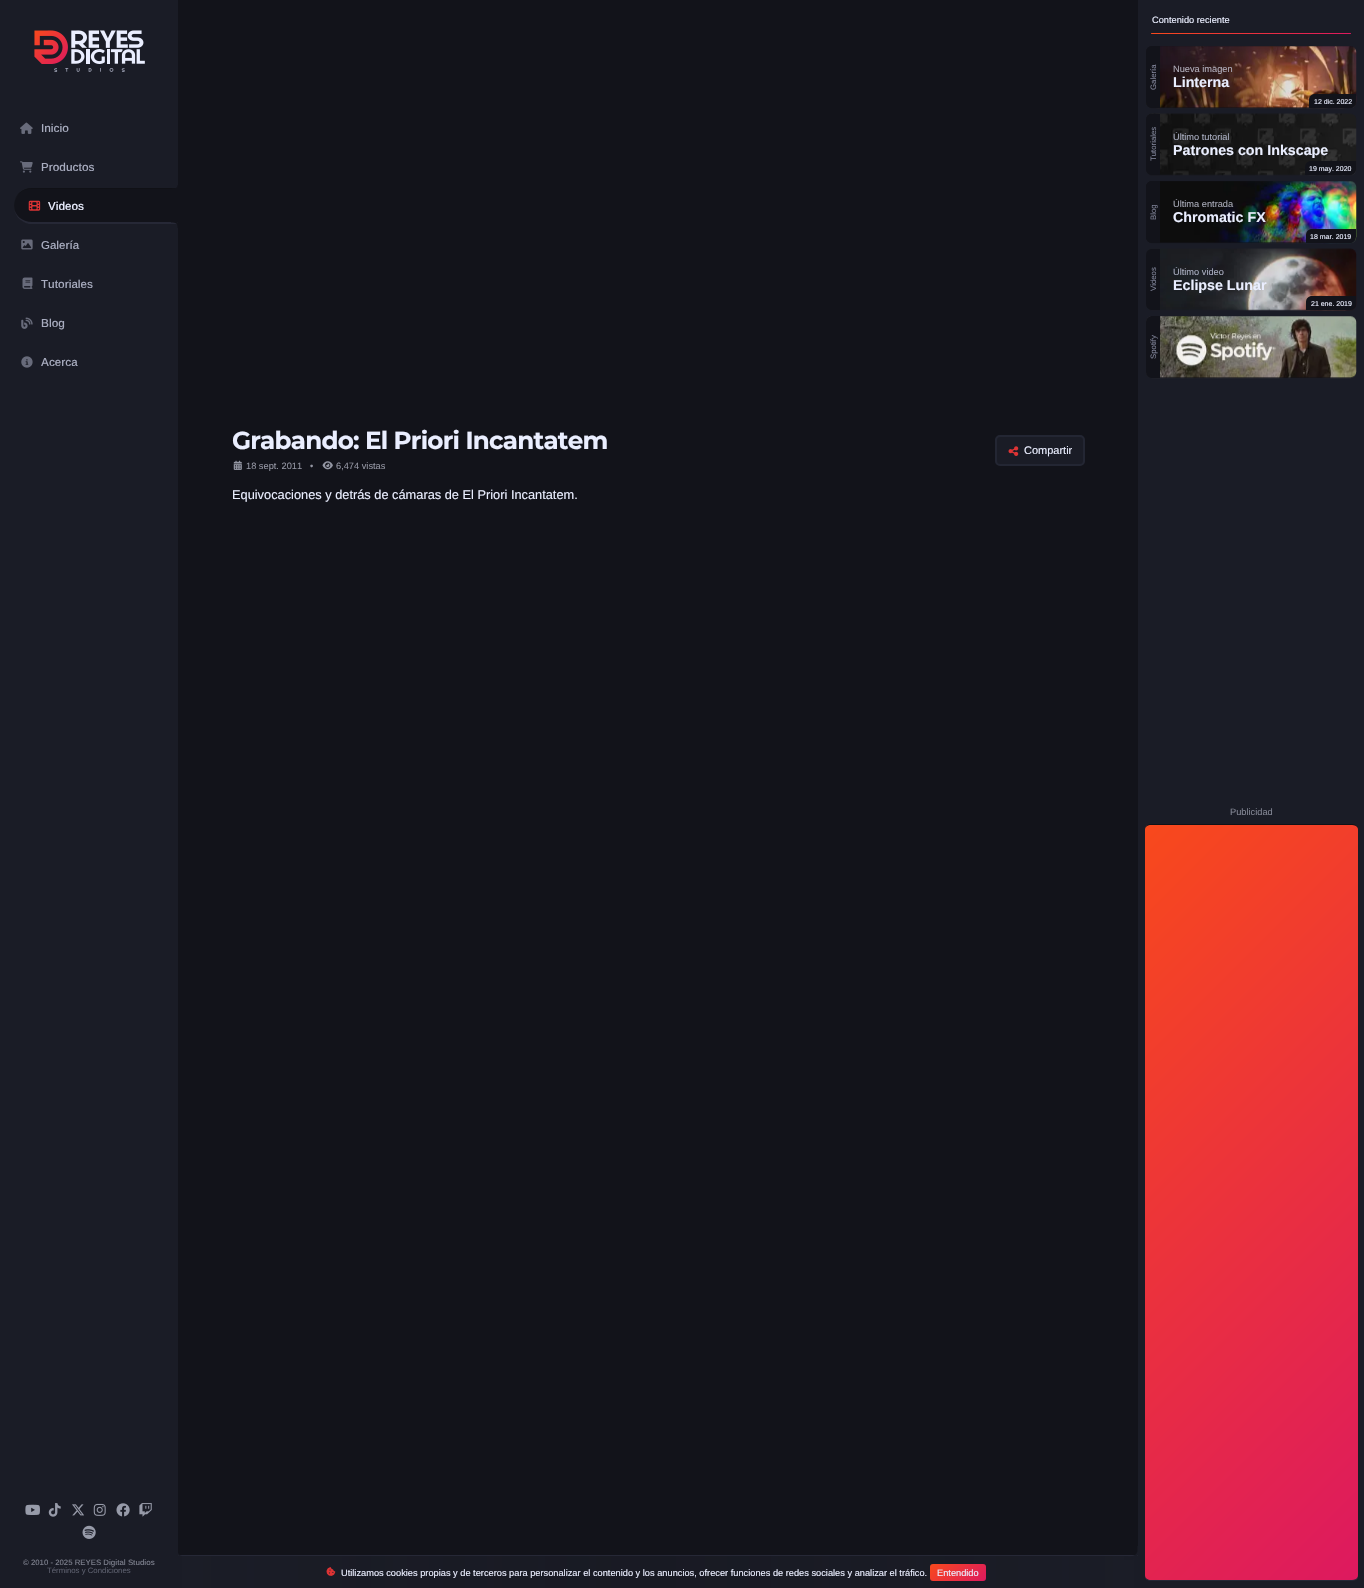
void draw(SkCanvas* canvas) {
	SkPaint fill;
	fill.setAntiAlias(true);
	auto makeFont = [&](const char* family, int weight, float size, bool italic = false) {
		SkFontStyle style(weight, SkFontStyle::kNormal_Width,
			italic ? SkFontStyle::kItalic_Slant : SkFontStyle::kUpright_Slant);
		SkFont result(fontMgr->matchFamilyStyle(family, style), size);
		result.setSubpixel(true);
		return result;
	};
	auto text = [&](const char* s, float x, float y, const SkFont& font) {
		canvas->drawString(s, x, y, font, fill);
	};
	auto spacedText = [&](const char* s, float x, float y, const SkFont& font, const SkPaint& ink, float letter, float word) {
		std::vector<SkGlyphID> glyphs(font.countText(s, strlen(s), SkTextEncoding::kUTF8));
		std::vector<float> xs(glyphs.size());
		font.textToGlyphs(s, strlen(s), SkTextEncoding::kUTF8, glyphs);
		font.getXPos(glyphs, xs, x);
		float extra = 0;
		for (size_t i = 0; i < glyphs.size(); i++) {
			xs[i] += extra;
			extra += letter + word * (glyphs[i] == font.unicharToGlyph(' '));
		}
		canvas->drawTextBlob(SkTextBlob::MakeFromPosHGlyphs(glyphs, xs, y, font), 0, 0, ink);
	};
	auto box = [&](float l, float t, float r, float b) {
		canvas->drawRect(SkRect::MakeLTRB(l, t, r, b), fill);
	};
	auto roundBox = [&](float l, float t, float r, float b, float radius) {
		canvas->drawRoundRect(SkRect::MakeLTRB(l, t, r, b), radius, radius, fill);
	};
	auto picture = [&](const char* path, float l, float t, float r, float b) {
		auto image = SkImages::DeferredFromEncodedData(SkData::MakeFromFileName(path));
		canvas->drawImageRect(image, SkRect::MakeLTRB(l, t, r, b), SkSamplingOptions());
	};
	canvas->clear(0xFF12131A);
	fill.setColor(0xFF1A1C26);
	box(0, 0, 178, 1588);
	picture("image0.png", 34, 30, 145, 72);
	picture("image1.png", 20, 122, 33, 134);
	picture("image2.png", 20, 161, 33, 173);
	fill.setColor(0xFF12131A);
	canvas->drawPath(SkPathBuilder().moveTo(32, 188).lineTo(178, 188).lineTo(178, 224).lineTo(32, 224).cubicTo(22, 224, 14, 216, 14, 206).cubicTo(14, 196, 22, 188, 32, 188).close().detach(), fill);
	fill.setColor(0xFF101116);
	canvas->drawPath(SkPathBuilder().moveTo(32, 188).lineTo(178, 188).lineTo(178, 189).lineTo(32, 189).cubicTo(22, 189, 14, 196, 14, 205).cubicTo(14, 195, 22, 188, 32, 188).close().detach(), fill);
	fill.setColor(0xFF262836);
	canvas->drawPath(SkPathBuilder().moveTo(178, 224).lineTo(29, 224).cubicTo(20, 222, 14, 215, 14, 206).cubicTo(14, 215, 22, 222, 32, 222).lineTo(178, 222).close().detach(), fill);
	picture("image3.png", 28, 200, 41, 211);
	fill.setColor(0xFF12131A);
	canvas->drawPath(SkPathBuilder().moveTo(171, 185).lineTo(171, 193).cubicTo(178, 193, 178, 191.5f, 178, 185).lineTo(177.5f, 185).cubicTo(177.5f, 188.5f, 174, 189, 171, 189).close().moveTo(171, 219).lineTo(171, 228).lineTo(171, 222.5f).cubicTo(176, 222.5f, 177.5f, 223, 177.5f, 228).lineTo(178, 228).cubicTo(178, 225, 179, 219, 174, 219).close().detach(), fill);
	picture("image4.png", 21, 239, 33, 250);
	picture("image5.png", 22, 277, 33, 289);
	picture("image6.png", 21, 317, 33, 329);
	picture("image7.png", 21, 356, 33, 368);
	picture("image8.png", 25, 1504, 40, 1515);
	picture("image9.png", 48, 1503, 61, 1517);
	picture("image10.png", 72, 1504, 84, 1516);
	picture("image11.png", 93, 1503, 106, 1516);
	picture("image12.png", 116, 1503, 130, 1517);
	picture("image13.png", 139, 1503, 152, 1517);
	picture("image14.png", 82, 1525, 96, 1539);
	picture("image15.png", 233, 460, 242, 470);
	picture("image16.png", 322, 461, 333, 470);
	fill.setColor(0xFF1A1C26);
	roundBox(996, 436, 1084, 464, 4);
	fill.setStyle(SkPaint::kStroke_Style);
	fill.setStrokeWidth(2);
	fill.setColor(0xFF232633);
	canvas->drawRoundRect(SkRect::MakeLTRB(996, 436, 1084, 465), 4, 4, fill);
	picture("image17.png", 1008, 446, 1019, 456);
	fill.setStyle(SkPaint::kFill_Style);
	fill.setColor(0xFF262836);
	box(178, 1555, 1138, 1556);
	fill.setColor(0xFF1A1C26);
	canvas->drawPath(SkPathBuilder().moveTo(178, 1553).cubicTo(178, 1561.5f, 185, 1560, 191, 1560).lineTo(191, 1556).cubicTo(187, 1556, 180, 1557.5f, 178, 1553).close().detach(), fill);
	{
		const SkColor colors[] = {0xFF1A1C26, 0xBD1A1C26, 0xFF1A1C26};
		const float stops[] = {0, 0.5f, 1};
		const SkPoint ends[] = {{178, 1573}, {1138, 1573}};
		fill.setShader(SkGradientShader::MakeLinear(ends, colors, stops, 3, SkTileMode::kClamp));
		fill.setAlpha(255);
	}
	box(178, 1556, 1138, 1588);
	fill.setShader(nullptr);
	fill.setColor(0xFF1A1C26);
	canvas->drawPath(SkPathBuilder().moveTo(1124, 1556).lineTo(1124, 1560).lineTo(1133, 1560).cubicTo(1139.5f, 1558.5f, 1138, 1550.5f, 1138, 1546).lineTo(1137.5f, 1546).lineTo(1137.5f, 1551.5f).cubicTo(1136, 1557.5f, 1128.5f, 1556, 1124, 1556).close().detach(), fill);
	picture("image18.png", 326, 1567, 336, 1576);
	{
		const SkColor colors[] = {0xFFF8491C, 0xFFDD195F};
		const float stops[] = {0, 1};
		const SkPoint ends[] = {{940, 1554}, {977, 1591}};
		fill.setShader(SkGradientShader::MakeLinear(ends, colors, stops, 2, SkTileMode::kClamp));
		fill.setAlpha(255);
	}
	roundBox(930, 1564, 986, 1581, 3);
	fill.setShader(nullptr);
	fill.setColor(0xFF1A1C26);
	box(1138, 0, 1364, 1588);
	{
		const SkColor colors[] = {0xFFF8491C, 0xFFDD195F};
		const float stops[] = {0, 1};
		const SkPoint ends[] = {{1201, -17}, {1302, 83}};
		fill.setShader(SkGradientShader::MakeLinear(ends, colors, stops, 2, SkTileMode::kClamp));
		fill.setAlpha(255);
	}
	roundBox(1151, 33, 1351, 34, 0.5f);
	fill.setShader(nullptr);
	fill.setColor(0xFF12131A);
	roundBox(1146, 46, 1356, 108, 6);
	picture("image19.png", 1146, 46, 1357, 109);
	canvas->drawPath(SkPathBuilder().moveTo(1152, 46).lineTo(1160, 46).lineTo(1160, 108).lineTo(1152, 108).cubicTo(1148.5f, 108, 1146, 105.5f, 1146, 102).lineTo(1146, 52).cubicTo(1146, 48.5f, 1148.5f, 46, 1152, 46).close().detach(), fill);
	canvas->drawPath(SkPathBuilder().moveTo(1315, 94).lineTo(1356, 94).lineTo(1356, 102).cubicTo(1356, 105.5f, 1353.5f, 108, 1350, 108).lineTo(1309, 108).lineTo(1309, 100).cubicTo(1309, 96.5f, 1311.5f, 94, 1315, 94).close().detach(), fill);
	picture("image20.png", 1146, 113, 1357, 176);
	canvas->drawPath(SkPathBuilder().moveTo(1152, 114).lineTo(1160, 114).lineTo(1160, 175).lineTo(1152, 175).cubicTo(1148.5f, 175, 1146, 172.5f, 1146, 169).lineTo(1146, 120).cubicTo(1146, 116.5f, 1148.5f, 114, 1152, 114).close().detach(), fill);
	canvas->drawPath(SkPathBuilder().moveTo(1311, 161).lineTo(1356, 161).lineTo(1356, 169).cubicTo(1356, 172.5f, 1353.5f, 175, 1350, 175).lineTo(1305, 175).lineTo(1305, 167).cubicTo(1305, 163.5f, 1307.5f, 161, 1311, 161).close().detach(), fill);
	roundBox(1146, 181, 1356, 243, 6);
	picture("image21.png", 1146, 181, 1357, 244);
	canvas->drawPath(SkPathBuilder().moveTo(1152, 181).lineTo(1160, 181).lineTo(1160, 243).lineTo(1152, 243).cubicTo(1148.5f, 243, 1146, 240.5f, 1146, 237).lineTo(1146, 187).cubicTo(1146, 183.5f, 1148.5f, 181, 1152, 181).close().detach(), fill);
	canvas->drawPath(SkPathBuilder().moveTo(1312, 229).lineTo(1356, 229).lineTo(1356, 237).cubicTo(1356, 240.5f, 1353.5f, 243, 1350, 243).lineTo(1306, 243).lineTo(1306, 235).cubicTo(1306, 231.5f, 1308.5f, 229, 1312, 229).close().detach(), fill);
	picture("image22.png", 1146, 248, 1357, 311);
	canvas->drawPath(SkPathBuilder().moveTo(1152, 249).lineTo(1160, 249).lineTo(1160, 310).lineTo(1152, 310).cubicTo(1148.5f, 310, 1146, 307.5f, 1146, 304).lineTo(1146, 255).cubicTo(1146, 251.5f, 1148.5f, 249, 1152, 249).close().detach(), fill);
	canvas->drawPath(SkPathBuilder().moveTo(1312, 296).lineTo(1356, 296).lineTo(1356, 304).cubicTo(1356, 307.5f, 1353.5f, 310, 1350, 310).lineTo(1306, 310).lineTo(1306, 302).cubicTo(1306, 298.5f, 1308.5f, 296, 1312, 296).close().detach(), fill);
	roundBox(1146, 316, 1356, 378, 6);
	picture("image23.png", 1146, 316, 1357, 379);
	canvas->drawPath(SkPathBuilder().moveTo(1152, 316).lineTo(1160, 316).lineTo(1160, 378).lineTo(1152, 378).cubicTo(1148.5f, 378, 1146, 375.5f, 1146, 372).lineTo(1146, 322).cubicTo(1146, 318.5f, 1148.5f, 316, 1152, 316).close().detach(), fill);
	canvas->save();
	canvas->clipPath(SkPathBuilder().moveTo(1151, 824).lineTo(1352, 824).cubicTo(1355.5f, 824, 1358, 826.5f, 1358, 830).lineTo(1358, 1575).cubicTo(1358, 1578.5f, 1355.5f, 1581, 1352, 1581).lineTo(1151, 1581).cubicTo(1147.5f, 1581, 1145, 1578.5f, 1145, 1575).lineTo(1145, 830).cubicTo(1145, 826.5f, 1147.5f, 824, 1151, 824).close().detach(), true);
	{
		const SkColor colors[] = {0xFFF8491C, 0xFFDD195F};
		const float stops[] = {0, 1};
		const SkPoint ends[] = {{1009, 961}, {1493, 1444}};
		fill.setShader(SkGradientShader::MakeLinear(ends, colors, stops, 2, SkTileMode::kClamp));
		fill.setAlpha(255);
	}
	box(1145, 825, 1358, 1580);
	canvas->restore();
	fill.setShader(nullptr);
	fill.setColor(0xFF101116);
	canvas->drawPath(SkPathBuilder().moveTo(1151, 824).lineTo(1352, 824).cubicTo(1354, 824, 1358, 825, 1358, 828).cubicTo(1357, 826, 1354, 825, 1352, 825).lineTo(1151, 825).cubicTo(1148, 825, 1145, 827, 1145, 829).cubicTo(1145, 826, 1148, 824, 1151, 824).close().detach(), fill);
	fill.setColor(0xFF262836);
	canvas->drawPath(SkPathBuilder().moveTo(1358, 1578).cubicTo(1357, 1580, 1354, 1581, 1352, 1581).lineTo(1151, 1581).cubicTo(1148, 1581, 1145, 1579, 1145, 1576).cubicTo(1145, 1578, 1148, 1580, 1151, 1580).lineTo(1352, 1580).cubicTo(1354, 1580, 1357, 1579, 1358, 1577).close().detach(), fill);
	auto font1 = makeFont("Arimo", 500, 11.5f);
	fill.setColor(0xFFA8ACBF);
	text("Inicio", 41, 132, font1);
	text("Productos", 41, 171, font1);
	fill.setColor(0xFFEAEEFF);
	text("Videos", 48, 210, font1);
	fill.setColor(0xFFA8ACBF);
	text("Galería", 41, 249, font1);
	text("Tutoriales", 41, 288, font1);
	text("Blog", 41, 327, font1);
	text("Acerca", 41, 366, font1);
	auto font2 = makeFont("Arimo", 500, 7.8f);
	fill.setColor(0xFF787B88);
	text("© 2010 - 2025 REYES Digital Studios", 23, 1565, font2);
	auto font3 = makeFont("Arimo", 400, 7.8f);
	fill.setColor(0xFF5A5D6B);
	text("Términos y Condiciones", 47, 1573, font3);
	auto font4 = makeFont("Montserrat", 700, 24.6f);
	fill.setColor(0xFFEAEEFF);
	spacedText("Grabando: El Priori Incantatem", 232, 449, font4, fill, -0.75f, 0);
	auto font5 = makeFont("Arimo", 400, 9.25f);
	fill.setColor(0xFF9496A3);
	text("18 sept. 2011", 246, 469, font5);
	text("•", 310, 469, font5);
	text("6,474 vistas", 336, 469, font5);
	auto font6 = makeFont("Arimo", 400, 11);
	fill.setColor(0xFFEAEEFF);
	text("Compartir", 1024, 454, font6);
	auto font7 = makeFont("Arimo", 400, 12.8f);
	text("Equivocaciones y detrás de cámaras de El Priori Incantatem.", 232, 499, font7);
	text("Utilizamos cookies propias y de terceros para personalizar el contenido y los anuncios, ofrecer funciones de redes sociales y analizar el tráfico.", 341, 1576, font5);
	text("Entendido", 937, 1576, font5);
	text("Contenido reciente", 1152, 23, font5);
	fill.setColor(0xFF808499);
	canvas->save();
	canvas->rotate(-90, 1156, 90);
	text("Galería", 1156, 90, font3);
	canvas->restore();
	fill.setColor(0xFFB1AEBB);
	text("Nueva imagen", 1173, 72, font5);
	auto font8 = makeFont("Arimo", 700, 14.25f);
	fill.setColor(0xFFEAEEFF);
	text("Linterna", 1173, 87, font8);
	auto font9 = makeFont("Arimo", 400, 7);
	text("12 dic. 2022", 1314, 104, font9);
	fill.setColor(0xFF808499);
	canvas->save();
	canvas->rotate(-90, 1156, 161);
	text("Tutoriales", 1156, 161, font3);
	canvas->restore();
	fill.setColor(0xFFA8ACBF);
	text("Último tutorial", 1173, 140, font5);
	fill.setColor(0xFFEAEEFF);
	text("Patrones con Inkscape", 1173, 155, font8);
	text("19 may. 2020", 1309, 171, font9);
	fill.setColor(0xFF808499);
	canvas->save();
	canvas->rotate(-90, 1156, 220);
	text("Blog", 1156, 220, font3);
	canvas->restore();
	fill.setColor(0xFFA8AAB7);
	text("Última entrada", 1173, 207, font5);
	fill.setColor(0xFFEAEEFF);
	text("Chromatic FX", 1173, 222, font8);
	text("18 mar. 2019", 1310, 239, font9);
	fill.setColor(0xFF808499);
	canvas->save();
	canvas->rotate(-90, 1156, 291);
	text("Videos", 1156, 291, font3);
	canvas->restore();
	fill.setColor(0xFFA8ACBF);
	text("Último video", 1173, 275, font5);
	fill.setColor(0xFFEAEEFF);
	text("Eclipse Lunar", 1173, 290, font8);
	text("21 ene. 2019", 1311, 306, font9);
	fill.setColor(0xFF808499);
	canvas->save();
	canvas->rotate(-90, 1156, 359);
	text("Spotify", 1156, 359, font3);
	canvas->restore();
	fill.setColor(0xFF828593);
	text("Publicidad", 1230, 815, font5);
}
